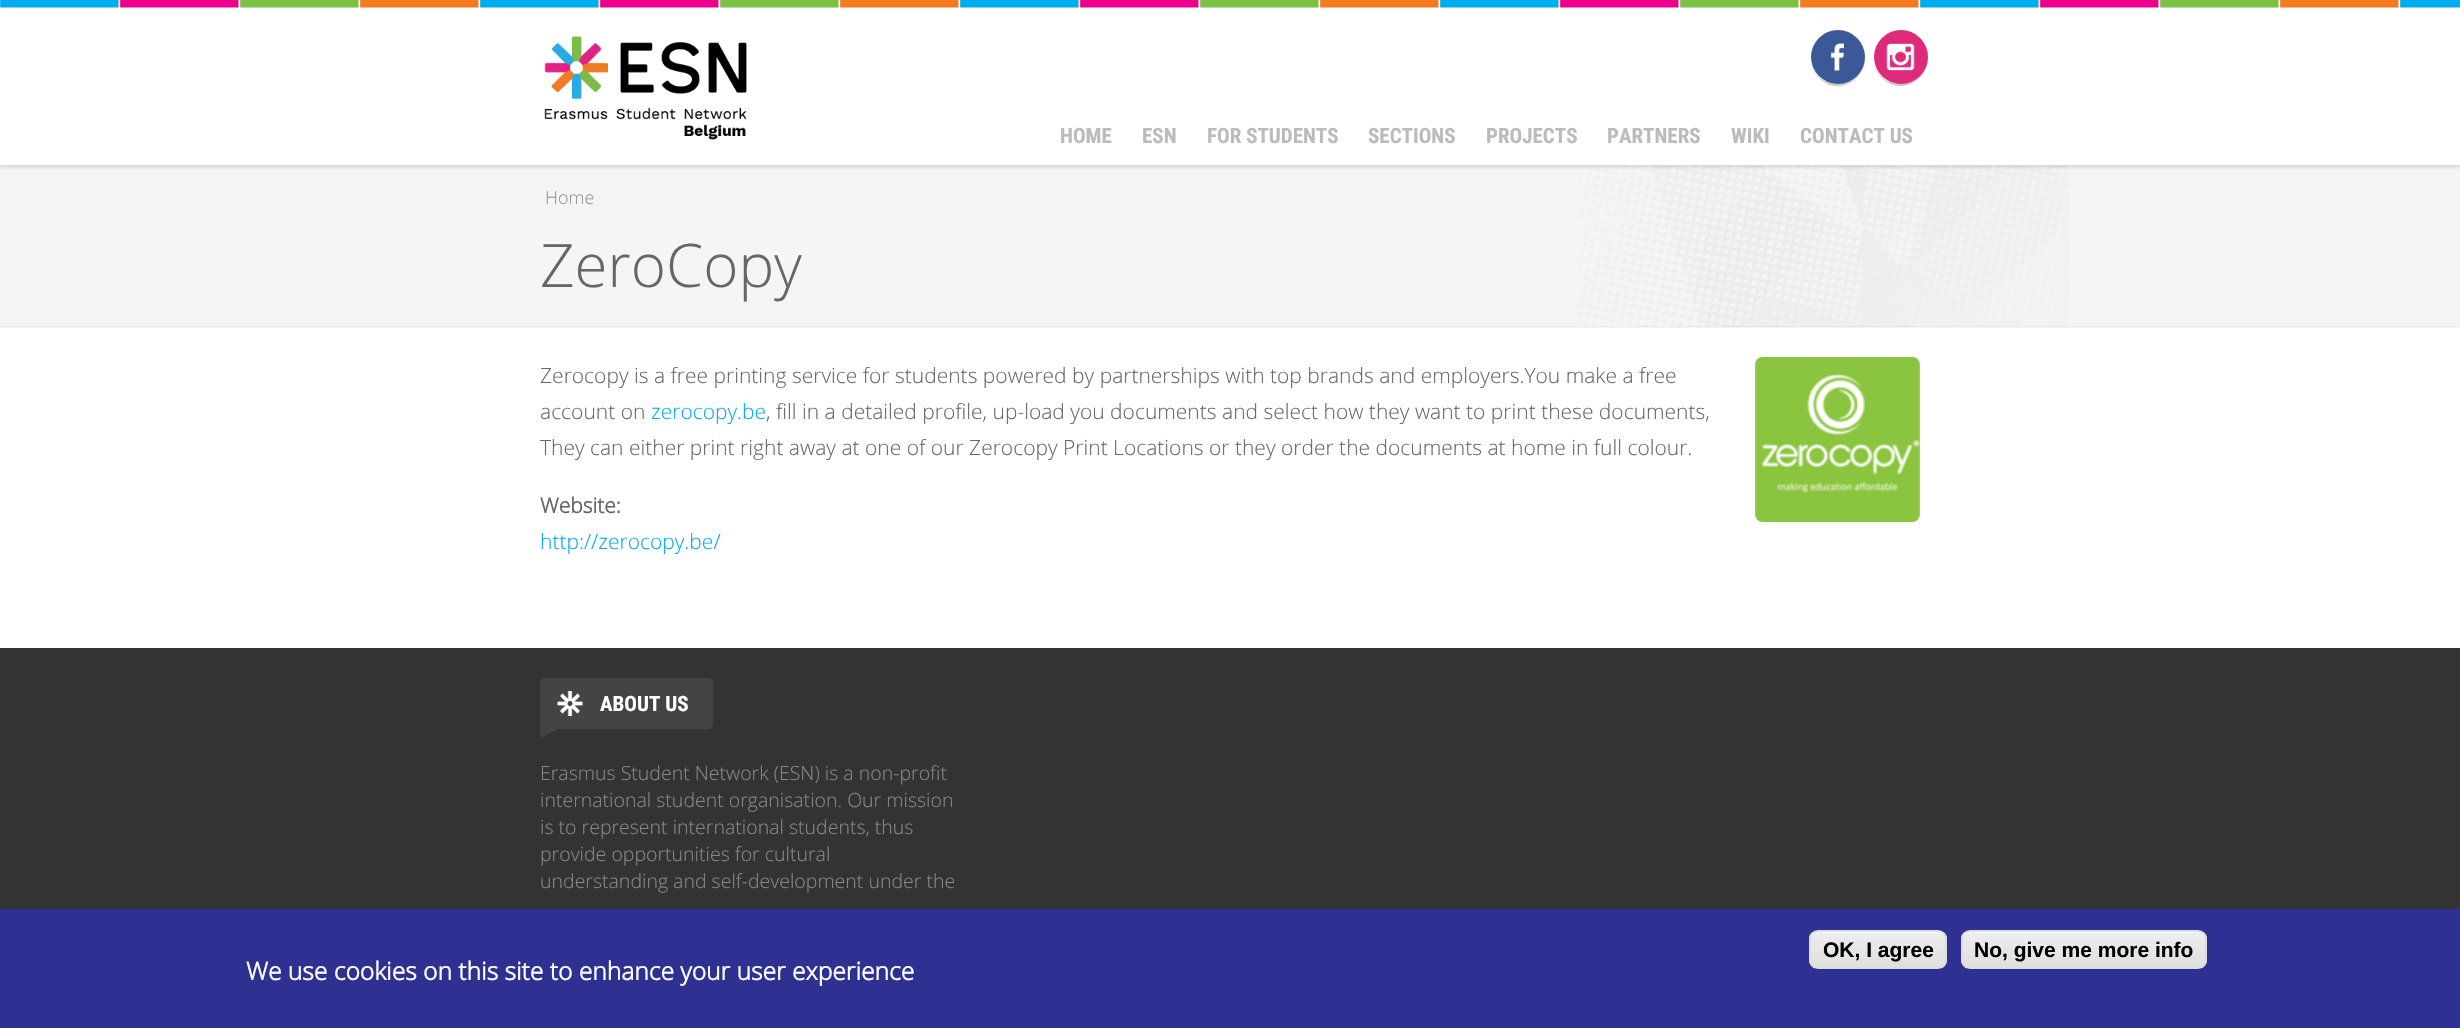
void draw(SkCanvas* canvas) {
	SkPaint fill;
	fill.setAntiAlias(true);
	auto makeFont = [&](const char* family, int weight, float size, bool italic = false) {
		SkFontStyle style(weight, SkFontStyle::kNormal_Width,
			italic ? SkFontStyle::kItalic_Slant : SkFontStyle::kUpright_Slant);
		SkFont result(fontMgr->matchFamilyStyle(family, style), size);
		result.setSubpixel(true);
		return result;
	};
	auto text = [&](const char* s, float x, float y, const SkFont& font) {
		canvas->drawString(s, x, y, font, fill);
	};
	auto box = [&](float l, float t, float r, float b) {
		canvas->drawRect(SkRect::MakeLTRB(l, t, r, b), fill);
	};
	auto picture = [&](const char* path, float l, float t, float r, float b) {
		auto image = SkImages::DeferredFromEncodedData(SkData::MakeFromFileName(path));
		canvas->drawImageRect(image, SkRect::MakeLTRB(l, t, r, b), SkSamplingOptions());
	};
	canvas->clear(0xFFFFFFFF);
	fill.setColor(0xFFF5F5F5);
	box(0, 165, 2460, 327);
	picture("image4.png", 1577, 165, 2069, 327);
	canvas->save();
	canvas->clipRect(SkRect::MakeLTRB(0, 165, 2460, 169));
	fill.setColor(0x1A000000);
	fill.setMaskFilter(SkMaskFilter::MakeBlur(kNormal_SkBlurStyle, 1.5f));
	canvas->drawRect(SkRect::MakeLTRB(0, 3, 2460, 168), fill);
	fill.setMaskFilter(nullptr);
	canvas->restore();
	picture("image0.png", 0, 0, 2460, 8);
	picture("image1.png", 544, 36, 747, 140);
	fill.setColor(0xFFCCCCCC);
	canvas->drawPath(SkPathBuilder().moveTo(1812, 65).cubicTo(1813, 71, 1816, 76, 1821, 80).cubicTo(1841, 97, 1871, 76, 1864, 51).cubicTo(1871, 85, 1821, 97, 1812, 65).close().detach(), fill);
	fill.setColor(0xFF3B5998);
	canvas->drawCircle(1838, 57, 27, fill);
	picture("image2.png", 1831, 43, 1844, 71);
	fill.setColor(0xFFCCCCCC);
	canvas->drawPath(SkPathBuilder().moveTo(1875, 65).cubicTo(1876, 71, 1879, 76, 1884, 80).cubicTo(1904, 97, 1934, 76, 1927, 51).cubicTo(1934, 85, 1884, 97, 1875, 65).close().detach(), fill);
	fill.setColor(0xFFDD2A7B);
	canvas->drawCircle(1901, 57, 27, fill);
	picture("image3.png", 1886, 43, 1915, 71);
	fill.setColor(0x0A000000);
	box(0, 326, 2460, 328);
	picture("image5.png", 1755, 357, 1920, 522);
	fill.setColor(0xFF333333);
	box(0, 648, 2460, 909);
	fill.setColor(0xFF444444);
	canvas->drawPath(SkPathBuilder().moveTo(545, 678).lineTo(708, 678).cubicTo(711, 678, 713, 680, 713, 683).lineTo(713, 724).cubicTo(713, 727, 711, 729, 708, 729).lineTo(540, 729).lineTo(540, 683).cubicTo(540, 680, 542, 678, 545, 678).close().detach(), fill);
	picture("image6.png", 557, 691, 583, 716);
	canvas->drawPath(SkPathBuilder().moveTo(540, 729).lineTo(558, 729).lineTo(540, 738).close().detach(), fill);
	fill.setColor(0xFF2E3192);
	box(0, 909, 2460, 1028);
	canvas->save();
	canvas->clipPath(SkPathBuilder().moveTo(1818, 930).lineTo(1938, 930).cubicTo(1943, 930, 1947, 934, 1947, 939).lineTo(1947, 960).cubicTo(1947, 965, 1943, 969, 1938, 969).lineTo(1818, 969).cubicTo(1813, 969, 1809, 965, 1809, 960).lineTo(1809, 939).cubicTo(1809, 934, 1813, 930, 1818, 930).close().detach(), true);
	{
		const SkColor colors[] = {0xFFEDEDED, 0xFFDFDFDF};
		const float stops[] = {0.05f, 1};
		const SkPoint ends[] = {{1811, 932}, {1811, 968}};
		fill.setShader(SkGradientShader::MakeLinear(ends, colors, stops, 2, SkTileMode::kClamp));
		fill.setAlpha(255);
	}
	box(1809, 932, 1947, 968);
	canvas->restore();
	fill.setShader(nullptr);
	fill.setColor(0xFFFFFFFF);
	canvas->drawPath(SkPathBuilder().moveTo(1818, 933).lineTo(1938, 933).cubicTo(1942, 933, 1946, 936, 1946, 940).cubicTo(1946, 936, 1942, 932, 1938, 932).lineTo(1819, 932).cubicTo(1817, 932, 1815, 933, 1813, 934).cubicTo(1815, 934, 1816, 933, 1818, 933).close().detach(), fill);
	fill.setStyle(SkPaint::kStroke_Style);
	fill.setStrokeWidth(2);
	fill.setColor(0xFFDCDCDC);
	canvas->drawRoundRect(SkRect::MakeLTRB(1810, 931, 1946, 968), 8, 8, fill);
	canvas->save();
	canvas->clipPath(SkPathBuilder().moveTo(1970, 930).lineTo(2198, 930).cubicTo(2203, 930, 2207, 934, 2207, 939).lineTo(2207, 960).cubicTo(2207, 965, 2203, 969, 2198, 969).lineTo(1970, 969).cubicTo(1965, 969, 1961, 965, 1961, 960).lineTo(1961, 939).cubicTo(1961, 934, 1965, 930, 1970, 930).close().detach(), true);
	fill.setStyle(SkPaint::kFill_Style);
	{
		const SkColor colors[] = {0xFFEDEDED, 0xFFDFDFDF};
		const float stops[] = {0.05f, 1};
		const SkPoint ends[] = {{1962, 932}, {1962, 968}};
		fill.setShader(SkGradientShader::MakeLinear(ends, colors, stops, 2, SkTileMode::kClamp));
		fill.setAlpha(255);
	}
	box(1961, 932, 2207, 968);
	canvas->restore();
	fill.setShader(nullptr);
	fill.setColor(0xFFFFFFFF);
	canvas->drawPath(SkPathBuilder().moveTo(1970, 933).lineTo(2198, 933).cubicTo(2202, 933, 2205, 936, 2205, 940).cubicTo(2205, 936, 2201, 932, 2197, 932).lineTo(1970, 932).cubicTo(1966, 932, 1962, 936, 1962, 940).cubicTo(1962, 936, 1965, 933, 1970, 933).close().detach(), fill);
	fill.setStyle(SkPaint::kStroke_Style);
	fill.setColor(0xFFDCDCDC);
	canvas->drawRoundRect(SkRect::MakeLTRB(1962, 931, 2206, 968), 8, 8, fill);
	auto font1 = makeFont("Roboto Condensed", 700, 21);
	fill.setStyle(SkPaint::kFill_Style);
	fill.setColor(0xFFBBBBBB);
	text("HOME", 1060, 143, font1);
	text("ESN", 1142, 143, font1);
	text("FOR STUDENTS", 1207, 143, font1);
	text("SECTIONS", 1368, 143, font1);
	text("PROJECTS", 1486, 143, font1);
	text("PARTNERS", 1607, 143, font1);
	text("WIKI", 1731, 143, font1);
	text("CONTACT US", 1800, 143, font1);
	auto font2 = makeFont("Open Sans", 300, 18);
	fill.setColor(0xFF939393);
	text("Home", 545, 204, font2);
	auto font3 = makeFont("Open Sans", 300, 60);
	fill.setColor(0xFF666666);
	text("ZeroCopy", 540, 287, font3);
	auto font4 = makeFont("Open Sans", 300, 21);
	text("Zerocopy is a free printing service for students powered by partnerships with top brands and employers.You make a free", 540, 383, font4);
	text("account on", 540, 419, font4);
	fill.setColor(0xFF00AEF0);
	text("zerocopy.be", 651, 419, font4);
	fill.setColor(0xFF666666);
	text(", fill in a detailed profile, up-load you documents and select how they want to print these documents,", 766, 419, font4);
	text("They can either print right away at one of our Zerocopy Print Locations or they order the documents at home in full colour.", 540, 455, font4);
	auto font5 = makeFont("Open Sans", 700, 21);
	text("Website:", 540, 513, font5);
	fill.setColor(0xFF00AEF0);
	text("http://zerocopy.be/", 540, 549, font4);
	fill.setColor(0xFFFFFFFF);
	text("ABOUT US", 600, 711, font1);
	auto font6 = makeFont("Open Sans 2", 300, 19.5f);
	fill.setColor(0xFF888888);
	text("Erasmus Student Network (ESN) is a non-profit", 540, 780, font6);
	text("international student organisation. Our mission", 540, 807, font6);
	text("is to represent international students, thus", 540, 834, font6);
	text("provide opportunities for cultural", 540, 861, font6);
	text("understanding and self-development under the", 540, 888, font6);
	auto font7 = makeFont("Liberation Sans", 700, 21);
	fill.setColor(0xFF000000);
	text("OK, I agree", 1823, 957, font7);
	text("No, give me more info", 1974, 957, font7);
	auto font8 = makeFont("Open Sans", 700, 24.6f);
	fill.setColor(0xFFFFFFFF);
	text("We use cookies on this site to enhance your user experience", 246, 980, font8);
}
